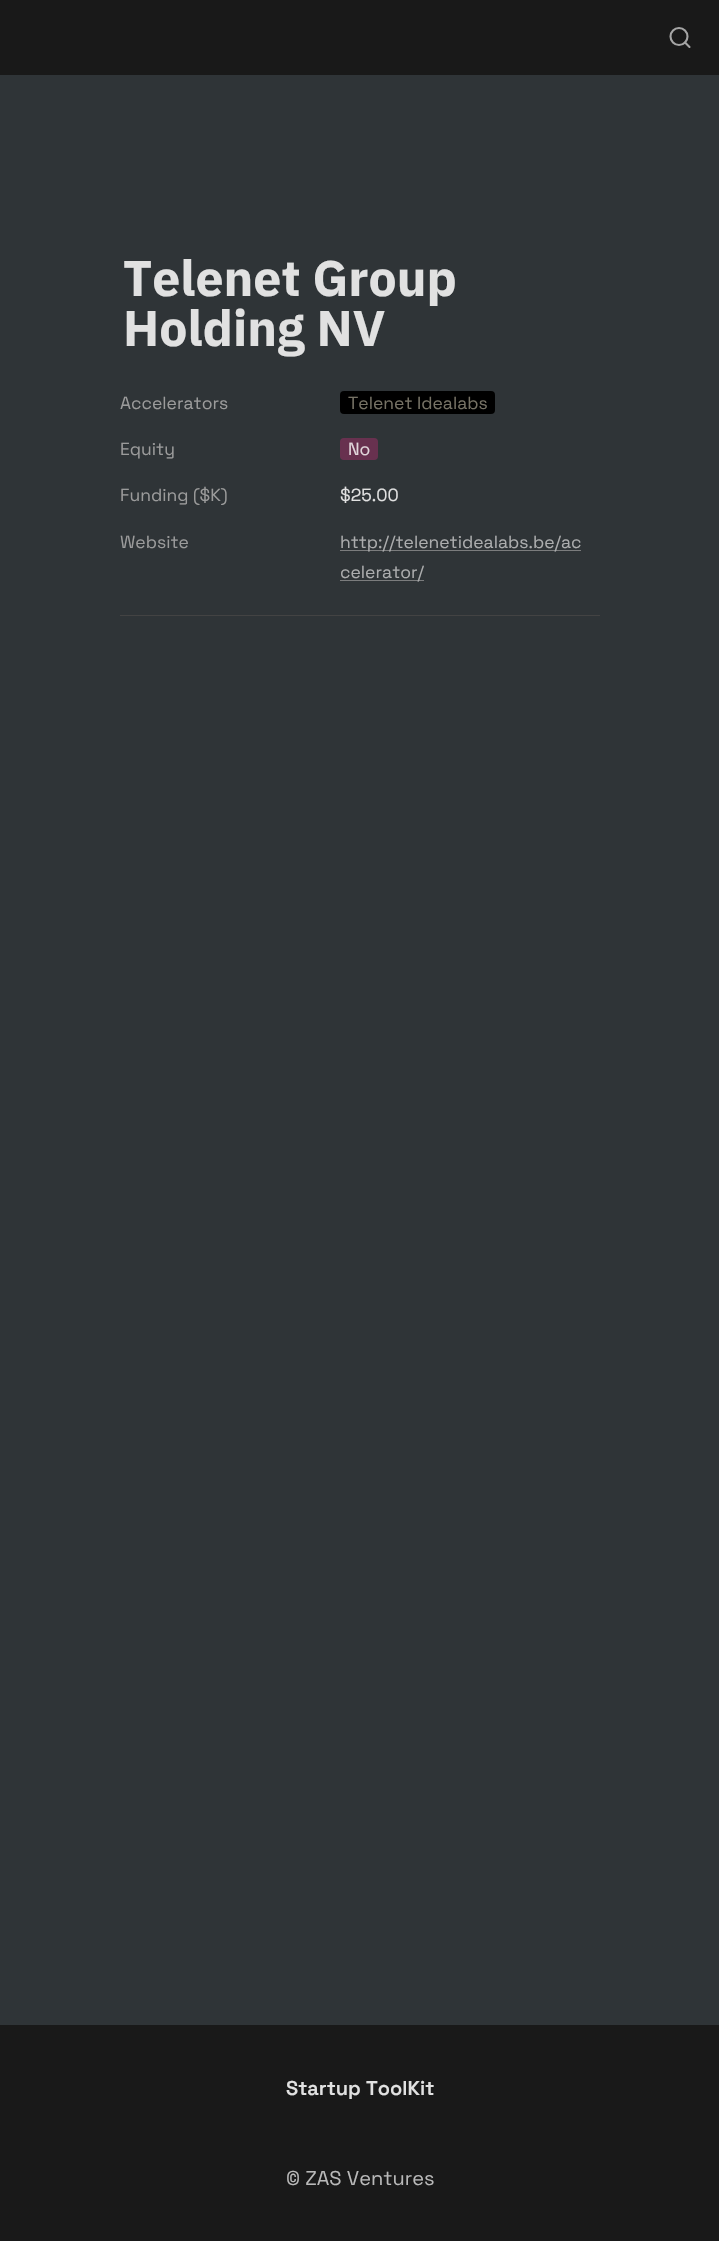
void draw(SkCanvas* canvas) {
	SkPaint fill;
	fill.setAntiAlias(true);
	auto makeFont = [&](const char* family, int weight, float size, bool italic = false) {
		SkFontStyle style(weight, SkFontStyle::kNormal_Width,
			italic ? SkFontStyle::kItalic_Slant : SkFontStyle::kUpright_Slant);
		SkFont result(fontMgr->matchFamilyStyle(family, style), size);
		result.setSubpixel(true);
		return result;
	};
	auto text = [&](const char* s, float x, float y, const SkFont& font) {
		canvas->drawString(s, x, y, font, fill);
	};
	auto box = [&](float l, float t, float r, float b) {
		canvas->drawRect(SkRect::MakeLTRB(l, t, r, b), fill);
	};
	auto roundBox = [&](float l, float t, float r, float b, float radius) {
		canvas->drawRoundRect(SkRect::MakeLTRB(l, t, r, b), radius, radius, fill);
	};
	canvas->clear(0xFF2F3437);
	fill.setColor(0xFF191919);
	box(0, 0, 719, 75);
	fill.setStyle(SkPaint::kStroke_Style);
	fill.setStrokeWidth(2.1f);
	fill.setColor(0xFFA5A5A5);
	canvas->drawCircle(679, 36.5f, 8.5f, fill);
	fill.setStrokeCap(SkPaint::kRound_Cap);
	fill.setStrokeJoin(SkPaint::kRound_Join);
	canvas->drawPath(SkPathBuilder().moveTo(689.5f, 47).lineTo(685, 42.5f).detach(), fill);
	fill.setStyle(SkPaint::kFill_Style);
	fill.setColor(0xFF000000);
	roundBox(340, 391, 495, 414, 4);
	fill.setColor(0xFF68314F);
	roundBox(340, 438, 378, 460, 4);
	fill.setColor(0xFF7B7C7D);
	box(340, 550, 581, 551);
	box(340, 580, 424, 581);
	fill.setColor(0xFF434343);
	box(120, 615, 600, 616);
	fill.setColor(0xFF191919);
	box(0, 2025, 719, 2241);
	auto font1 = makeFont("IBM Plex Sans", 700, 50);
	fill.setColor(0xFFE1E1E1);
	text("Telenet Group", 123, 296, font1);
	text("Holding NV", 123, 346, font1);
	auto font2 = makeFont("Space Grotesk", 300, 17.5f);
	fill.setColor(0xFF9B9B9B);
	text("Accelerators", 120, 409, font2);
	fill.setColor(0xFF767265);
	text("Telenet Idealabs", 348, 409, font2);
	fill.setColor(0xFF9B9B9B);
	text("Equity", 120, 455, font2);
	fill.setColor(0xFFE1D6DB);
	text("No", 348, 455, font2);
	fill.setColor(0xFF9B9B9B);
	text("Funding ($K)", 120, 501, font2);
	fill.setColor(0xFFE1E1E1);
	text("$25.00", 340, 501, font2);
	fill.setColor(0xFF9B9B9B);
	text("Website", 120, 548, font2);
	fill.setColor(0xFFACADAE);
	text("http://telenetidealabs.be/ac", 340, 548, font2);
	text("celerator/", 340, 578, font2);
	auto font3 = makeFont("Space Grotesk", 600, 20);
	fill.setColor(0xFFE1E1E1);
	text("Startup ToolKit", 286, 2095, font3);
	auto font4 = makeFont("Space Grotesk", 300, 20);
	fill.setColor(0xFFB9B9B9);
	text("© ZAS Ventures", 286, 2185, font4);
}
